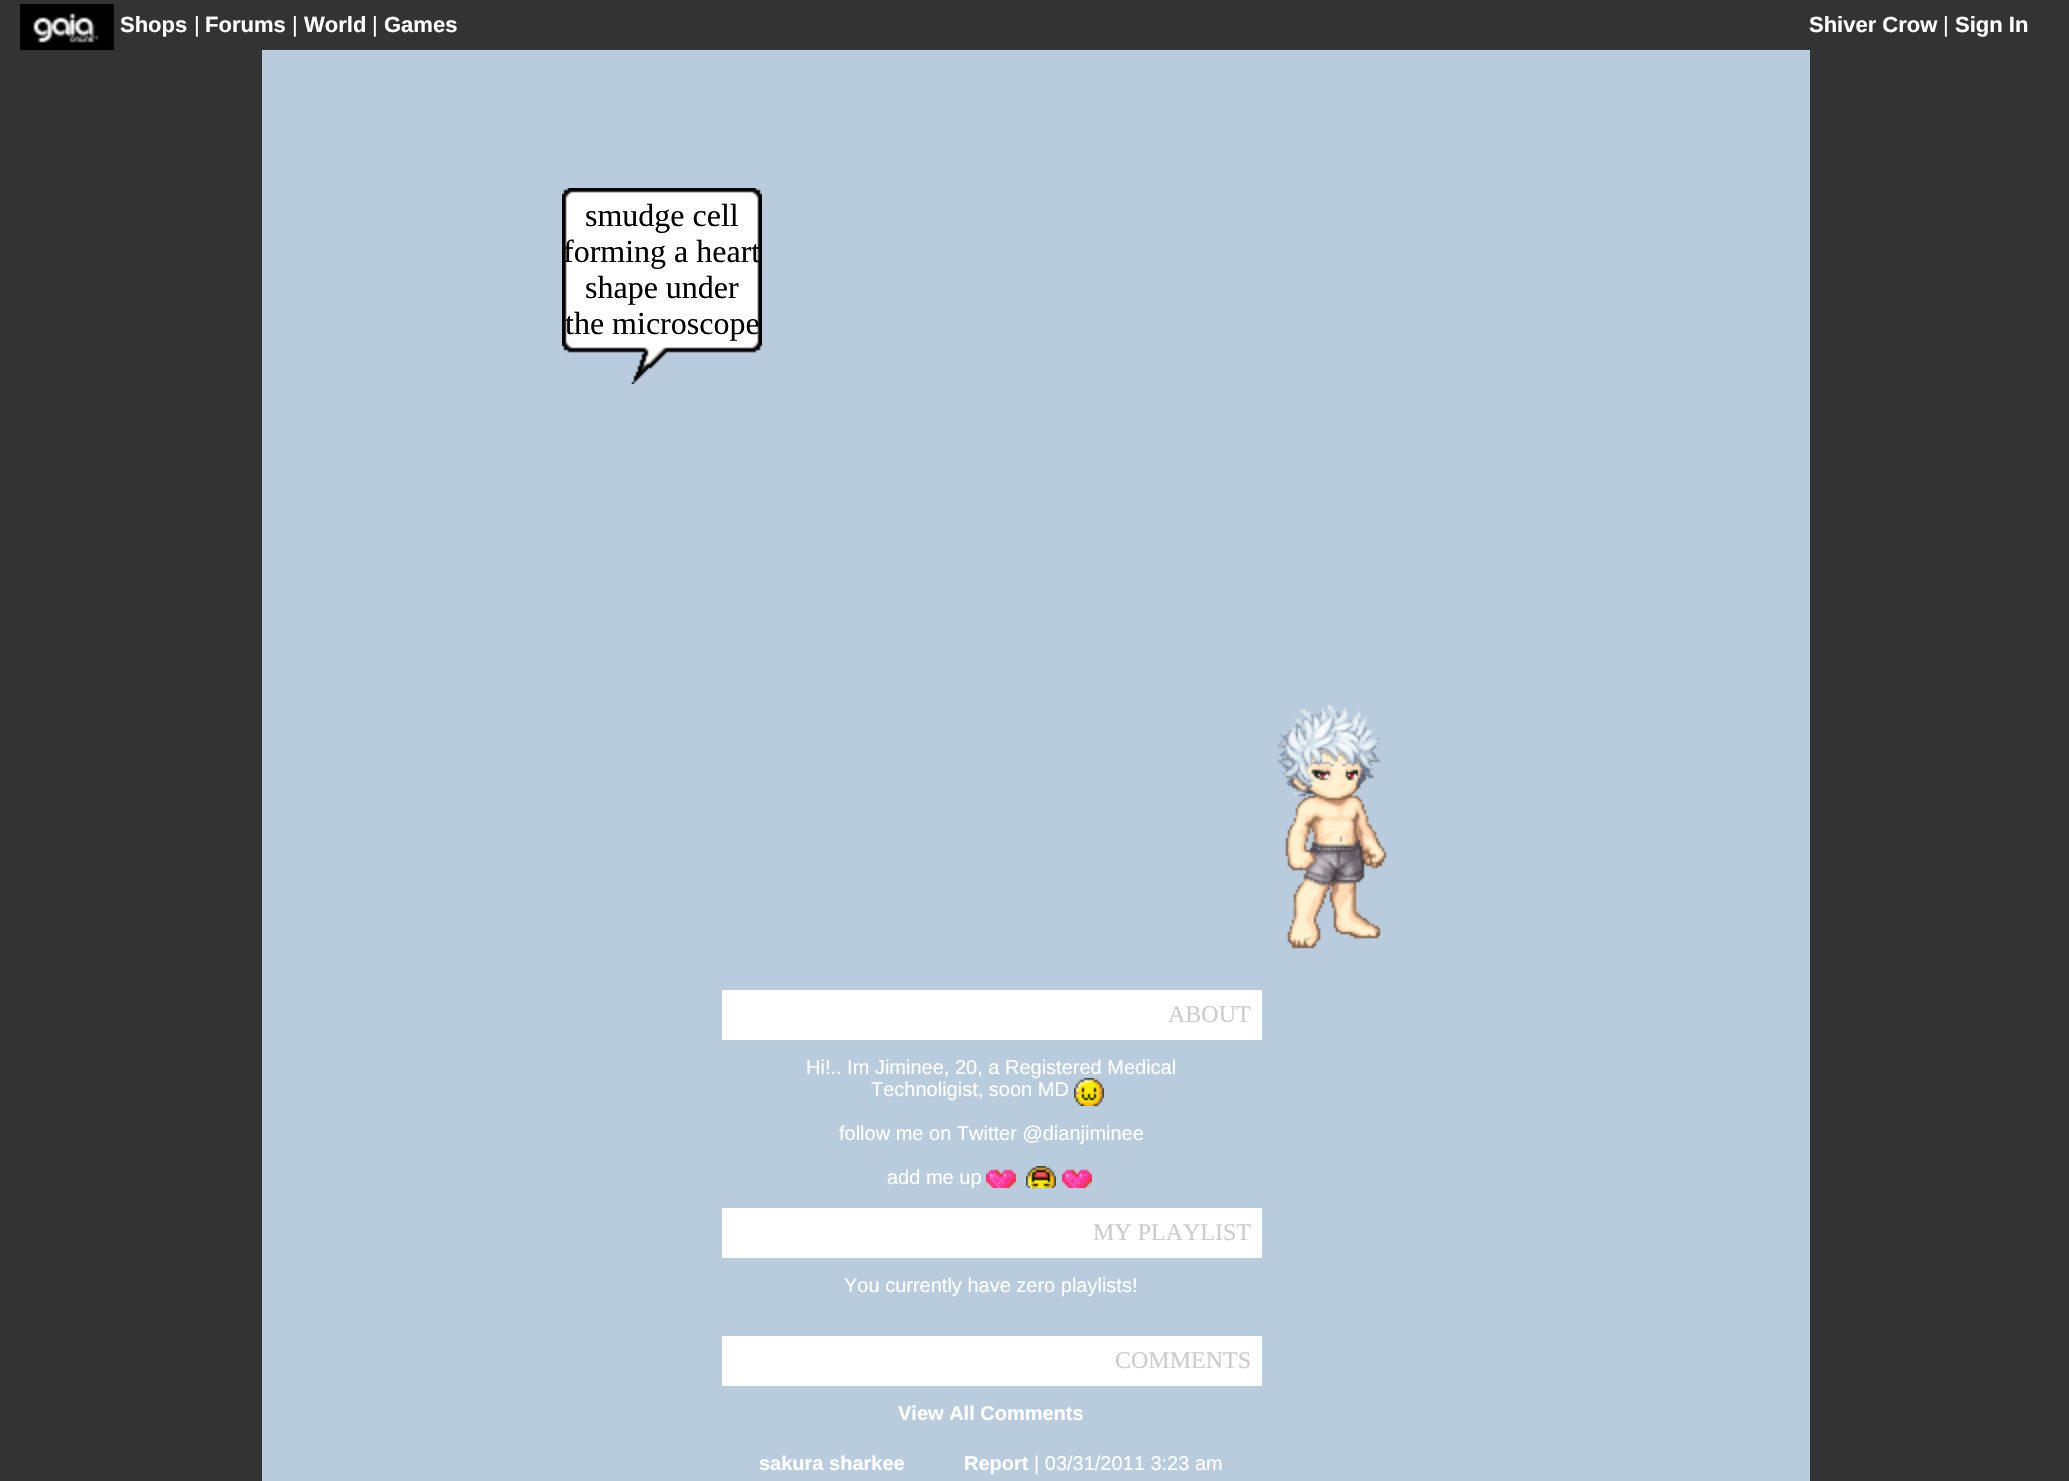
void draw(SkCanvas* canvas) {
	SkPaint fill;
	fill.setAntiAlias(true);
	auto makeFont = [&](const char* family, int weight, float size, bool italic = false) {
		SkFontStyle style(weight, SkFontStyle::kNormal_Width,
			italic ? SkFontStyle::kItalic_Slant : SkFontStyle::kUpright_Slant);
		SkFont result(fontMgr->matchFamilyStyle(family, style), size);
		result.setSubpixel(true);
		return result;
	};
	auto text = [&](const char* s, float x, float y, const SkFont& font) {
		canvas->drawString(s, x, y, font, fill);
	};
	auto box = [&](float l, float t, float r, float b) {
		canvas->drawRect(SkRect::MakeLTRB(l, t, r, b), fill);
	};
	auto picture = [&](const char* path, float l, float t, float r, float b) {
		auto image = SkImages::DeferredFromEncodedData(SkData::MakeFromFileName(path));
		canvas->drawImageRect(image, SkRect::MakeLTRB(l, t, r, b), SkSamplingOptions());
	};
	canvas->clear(0xFF333333);
	picture("image0.png", 20, 4, 114, 50);
	fill.setColor(0xFFB9CCDD);
	box(262, 50, 1810, 1481);
	picture("image1.png", 562, 188, 762, 198);
	picture("image2.png", 562, 198, 762, 342);
	picture("image3.png", 562, 342, 762, 384);
	picture("image4.png", 1277, 704, 1387, 949);
	fill.setColor(0xFFFFFFFF);
	box(722, 990, 1262, 1040);
	picture("image6.png", 986, 1169, 1016, 1188);
	picture("image7.png", 1026, 1166, 1056, 1188);
	picture("image6.png", 1062, 1169, 1092, 1188);
	box(722, 1208, 1262, 1258);
	box(722, 1336, 1262, 1386);
	auto font1 = makeFont("Liberation Sans", 700, 22);
	text("Shops", 120, 32, font1);
	auto font2 = makeFont("Liberation Sans", 400, 22);
	text("|", 194, 32, font2);
	text("Forums", 205, 32, font1);
	text("|", 292, 32, font2);
	text("World", 304, 32, font1);
	text("|", 372, 32, font2);
	text("Games", 384, 32, font1);
	text("Shiver Crow", 1809, 32, font1);
	text("|", 1943, 32, font2);
	text("Sign In", 1955, 32, font1);
	auto font3 = makeFont("Liberation Serif", 400, 32);
	fill.setColor(0xFF000000);
	text("smudge cell", 585, 226, font3);
	text("forming a heart", 563, 262, font3);
	text("shape under", 585, 298, font3);
	text("the microscope", 565, 334, font3);
	auto font4 = makeFont("Liberation Serif", 400, 24);
	fill.setColor(0xFFCCCCCC);
	text("ABOUT", 1168, 1022, font4);
	auto font5 = makeFont("Liberation Sans", 400, 20);
	fill.setColor(0xFFFFFFFF);
	text("Hi!.. Im Jiminee, 20, a Registered Medical", 806, 1074, font5);
	text("Technoligist, soon MD", 871, 1096, font5);
	picture("image5.png", 1074, 1078, 1104, 1106);
	text("follow me on Twitter @dianjiminee", 839, 1140, font5);
	text("add me up", 887, 1184, font5);
	fill.setColor(0xFFCCCCCC);
	text("MY PLAYLIST", 1093, 1240, font4);
	fill.setColor(0xFFFFFFFF);
	text("You currently have zero playlists!", 844, 1292, font5);
	fill.setColor(0xFFCCCCCC);
	text("COMMENTS", 1115, 1368, font4);
	auto font6 = makeFont("Liberation Sans", 700, 20);
	fill.setColor(0xFFFFFFFF);
	text("View All Comments", 898, 1420, font6);
	text("sakura sharkee", 759, 1470, font6);
	text("Report", 964, 1470, font6);
	text("| 03/31/2011 3:23 am", 1034, 1470, font5);
}
